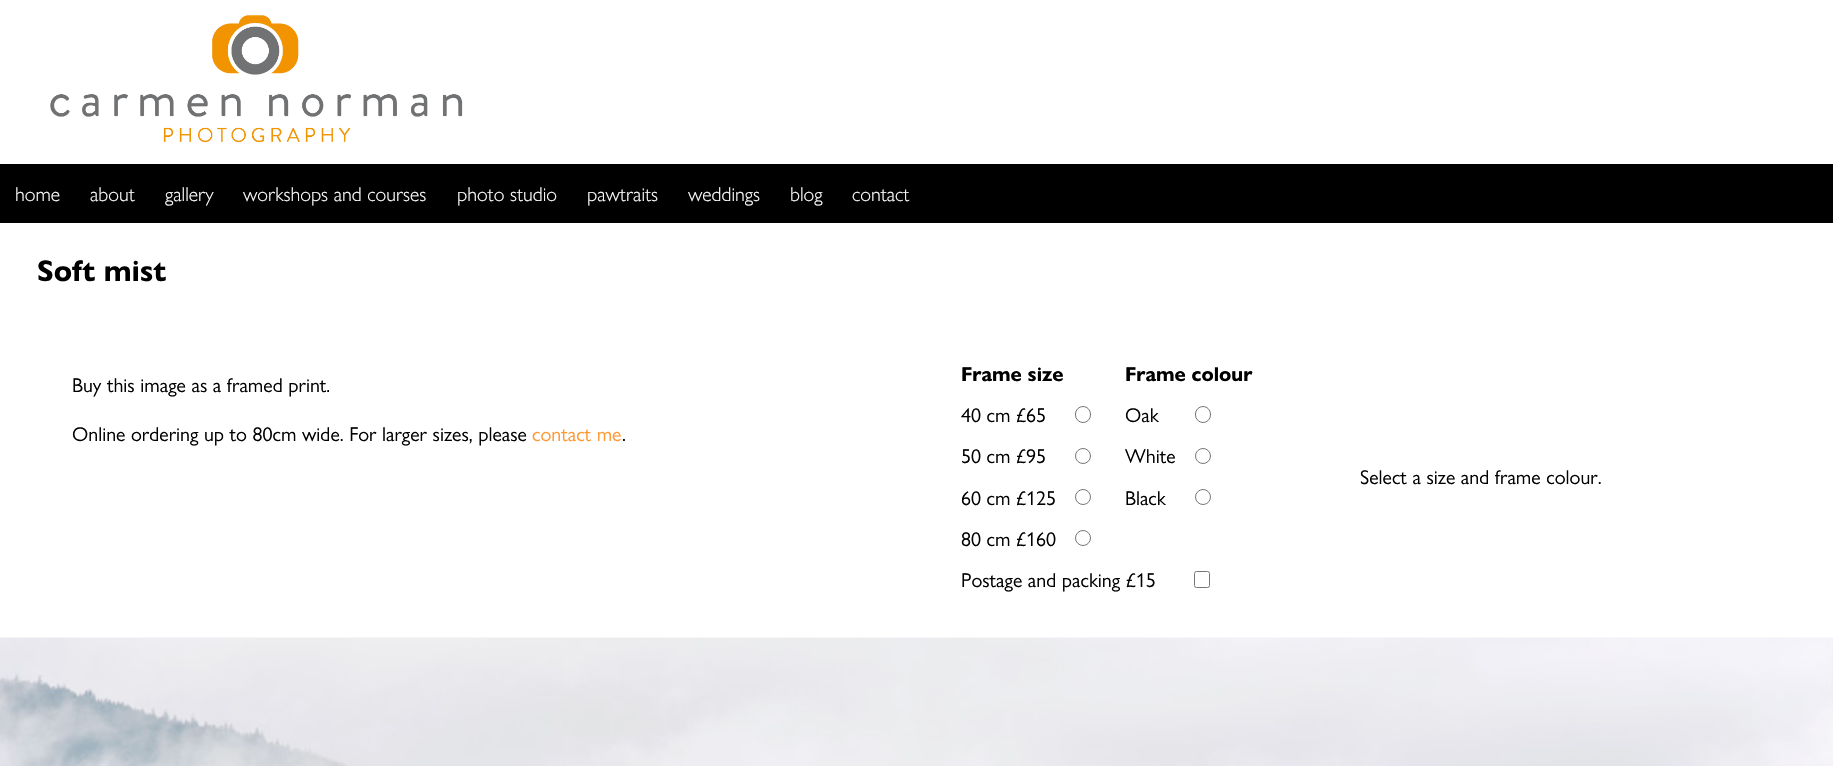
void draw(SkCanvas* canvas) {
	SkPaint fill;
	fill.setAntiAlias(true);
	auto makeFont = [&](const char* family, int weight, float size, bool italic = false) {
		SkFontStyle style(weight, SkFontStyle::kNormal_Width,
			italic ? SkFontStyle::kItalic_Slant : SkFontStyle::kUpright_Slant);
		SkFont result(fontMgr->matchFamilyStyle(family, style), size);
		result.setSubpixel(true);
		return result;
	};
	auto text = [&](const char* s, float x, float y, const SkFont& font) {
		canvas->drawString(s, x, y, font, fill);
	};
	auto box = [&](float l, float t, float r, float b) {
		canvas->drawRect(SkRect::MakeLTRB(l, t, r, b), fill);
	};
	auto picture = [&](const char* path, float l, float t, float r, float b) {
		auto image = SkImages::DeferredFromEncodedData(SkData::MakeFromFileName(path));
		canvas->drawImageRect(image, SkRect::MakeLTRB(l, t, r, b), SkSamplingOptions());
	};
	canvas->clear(0xFFFFFFFF);
	picture("image0.png", 50, 15, 463, 143);
	fill.setColor(0xFF000000);
	box(0, 164, 1833, 223);
	fill.setStyle(SkPaint::kStroke_Style);
	fill.setStrokeWidth(1);
	fill.setColor(0xFF767676);
	canvas->drawRoundRect(SkRect::MakeLTRB(1075.5f, 406.5f, 1090.5f, 422.5f), 7.5f, 7.5f, fill);
	canvas->drawRoundRect(SkRect::MakeLTRB(1195.5f, 406.5f, 1210.5f, 422.5f), 7.5f, 7.5f, fill);
	canvas->drawCircle(1083, 456, 7.5f, fill);
	canvas->drawCircle(1203, 456, 7.5f, fill);
	canvas->drawCircle(1083, 497, 7.5f, fill);
	canvas->drawCircle(1203, 497, 7.5f, fill);
	canvas->drawCircle(1083, 538, 7.5f, fill);
	canvas->drawRoundRect(SkRect::MakeLTRB(1194.5f, 571.5f, 1209.5f, 587.5f), 2, 2, fill);
	picture("image1.png", 0, 637, 1833, 766);
	auto font1 = makeFont("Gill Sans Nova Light", 300, 20);
	fill.setStyle(SkPaint::kFill_Style);
	fill.setColor(0xFFFFFFFF);
	text("home", 15, 201, font1);
	text("about", 90, 201, font1);
	text("gallery", 165, 201, font1);
	text("workshops and courses", 243, 201, font1);
	text("photo studio", 457, 201, font1);
	text("pawtraits", 587, 201, font1);
	text("weddings", 688, 201, font1);
	text("blog", 790, 201, font1);
	text("contact", 852, 201, font1);
	auto font2 = makeFont("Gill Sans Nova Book", 700, 30);
	fill.setColor(0xFF000000);
	text("Soft mist", 37, 281, font2);
	auto font3 = makeFont("Gill Sans Nova Book", 400, 20);
	text("Buy this image as a framed print.", 72, 392, font3);
	text("Online ordering up to 80cm wide. For larger sizes, please", 72, 441, font3);
	fill.setColor(0xFFFF9933);
	text("contact me", 532, 441, font3);
	fill.setColor(0xFF000000);
	text(".", 622, 441, font3);
	auto font4 = makeFont("Gill Sans Nova Book", 700, 20);
	text("Frame size", 961, 381, font4);
	text("Frame colour", 1125, 381, font4);
	text("40 cm £65", 961, 422, font3);
	text("Oak", 1125, 422, font3);
	text("50 cm £95", 961, 463, font3);
	text("White", 1125, 463, font3);
	text("60 cm £125", 961, 505, font3);
	text("Black", 1125, 505, font3);
	text("80 cm £160", 961, 546, font3);
	text("Postage and packing £15", 961, 587, font3);
	text("Select a size and frame colour.", 1360, 484, font3);
}
